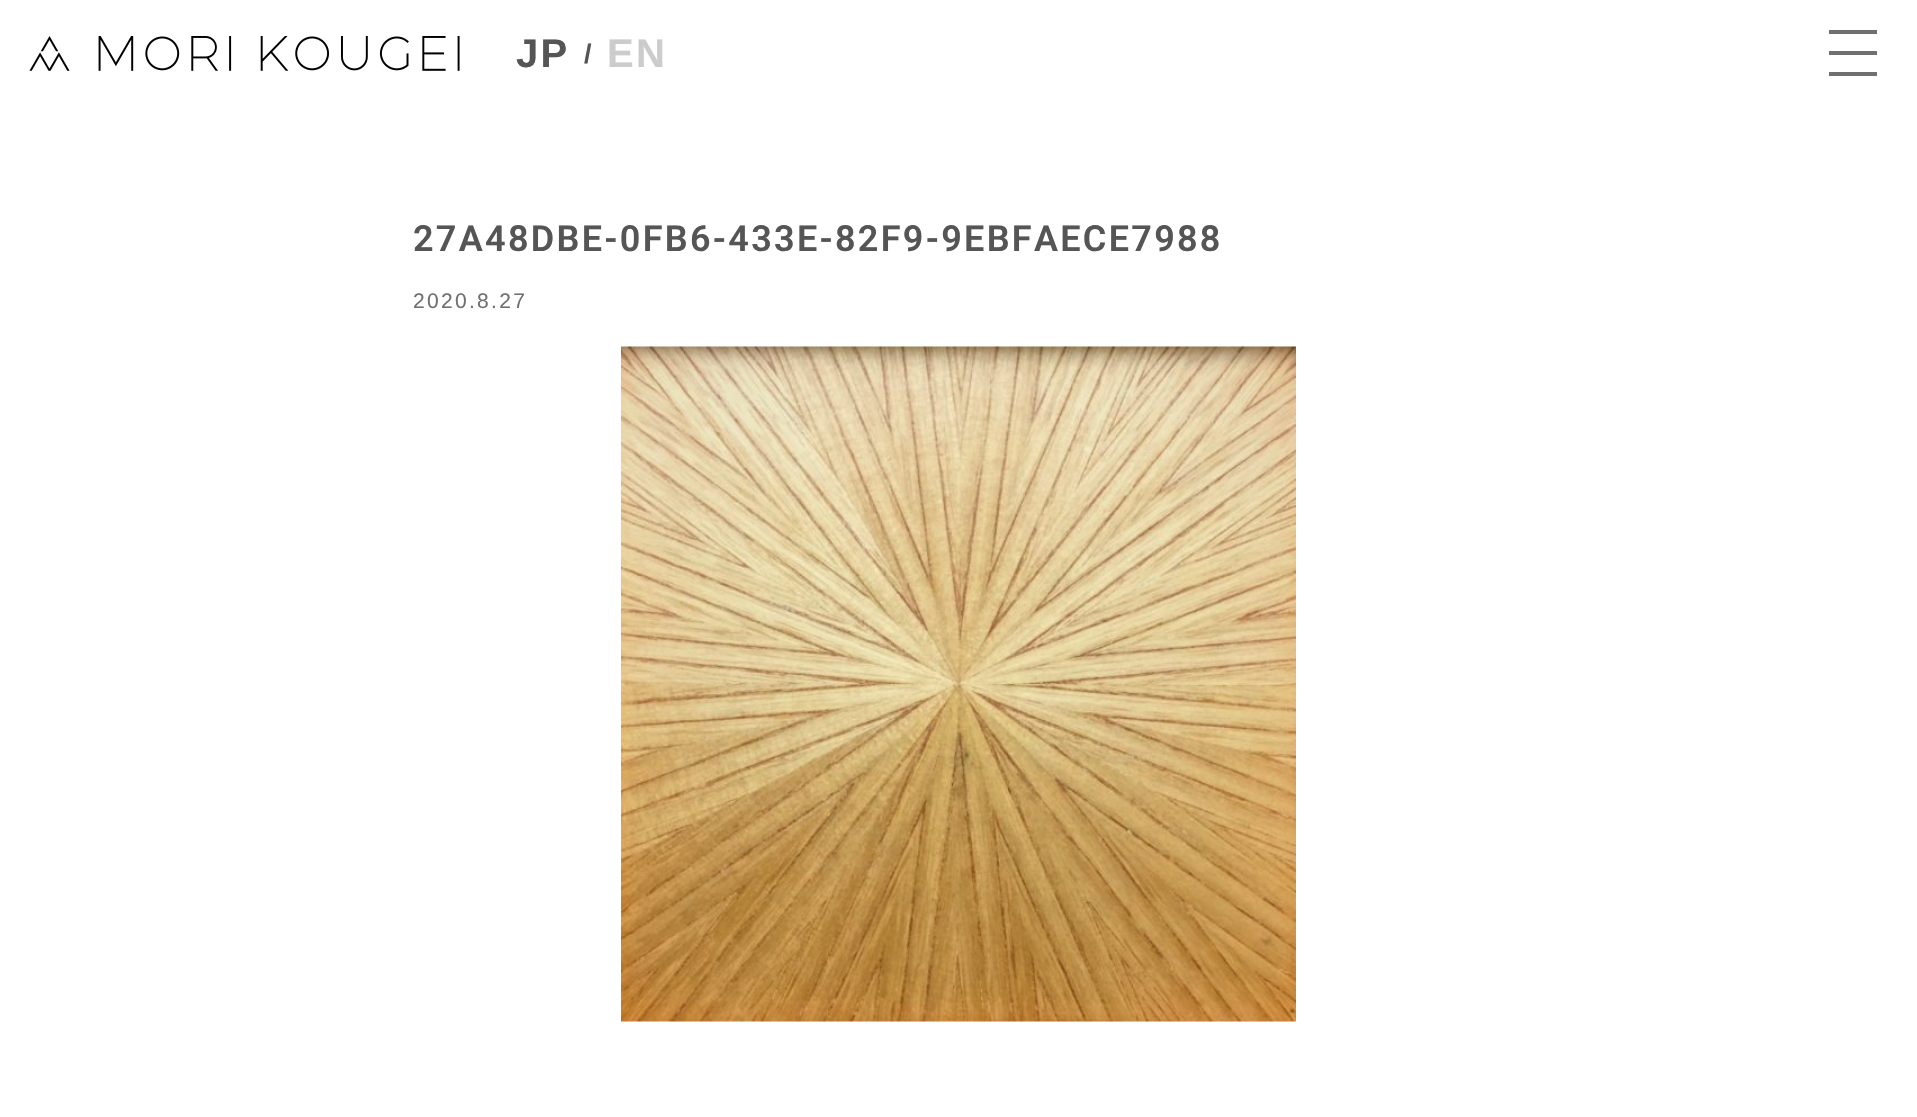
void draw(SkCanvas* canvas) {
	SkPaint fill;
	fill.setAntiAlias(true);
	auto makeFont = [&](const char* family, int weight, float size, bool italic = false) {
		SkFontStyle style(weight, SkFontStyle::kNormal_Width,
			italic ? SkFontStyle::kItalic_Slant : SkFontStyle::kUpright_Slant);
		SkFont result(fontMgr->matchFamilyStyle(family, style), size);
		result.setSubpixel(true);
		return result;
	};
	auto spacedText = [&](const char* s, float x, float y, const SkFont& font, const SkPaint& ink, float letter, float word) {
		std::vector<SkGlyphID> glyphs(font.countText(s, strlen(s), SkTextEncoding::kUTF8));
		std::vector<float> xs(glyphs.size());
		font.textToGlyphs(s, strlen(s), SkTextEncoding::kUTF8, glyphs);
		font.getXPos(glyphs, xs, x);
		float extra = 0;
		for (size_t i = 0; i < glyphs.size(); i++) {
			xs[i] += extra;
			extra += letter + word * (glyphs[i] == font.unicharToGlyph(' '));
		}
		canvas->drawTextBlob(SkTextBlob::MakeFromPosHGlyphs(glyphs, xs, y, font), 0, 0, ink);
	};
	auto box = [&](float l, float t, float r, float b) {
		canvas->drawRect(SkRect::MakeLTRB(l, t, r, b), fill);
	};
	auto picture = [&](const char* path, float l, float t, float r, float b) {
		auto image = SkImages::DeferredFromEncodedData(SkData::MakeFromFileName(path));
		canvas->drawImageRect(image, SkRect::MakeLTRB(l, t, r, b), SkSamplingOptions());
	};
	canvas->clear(0xFFFFFFFF);
	picture("image0.png", 29, 36, 460, 71);
	fill.setColor(0xFF707070);
	box(1829, 30, 1877, 34);
	box(1829, 51, 1877, 55);
	box(1829, 72, 1877, 76);
	picture("image1.png", 621, 346, 1296, 1022);
	auto font1 = makeFont("Liberation Sans", 700, 40);
	fill.setColor(0xFF555555);
	spacedText("JP", 516, 67, font1, fill, 2.3f, 0);
	auto font2 = makeFont("Liberation Sans", 700, 27);
	spacedText("/", 584, 63, font2, fill, 2.3f, 0);
	fill.setColor(0xFFCCCCCC);
	spacedText("EN", 607, 67, font1, fill, 2.3f, 0);
	auto font3 = makeFont("Roboto", 600, 36);
	fill.setColor(0xFF555555);
	spacedText("27A48DBE-0FB6-433E-82F9-9EBFAECE7988", 413, 251, font3, fill, 2.3f, 0);
	auto font4 = makeFont("Liberation Sans", 400, 21);
	fill.setColor(0xFF707070);
	spacedText("2020.8.27", 413, 308, font4, fill, 2.3f, 0);
}
